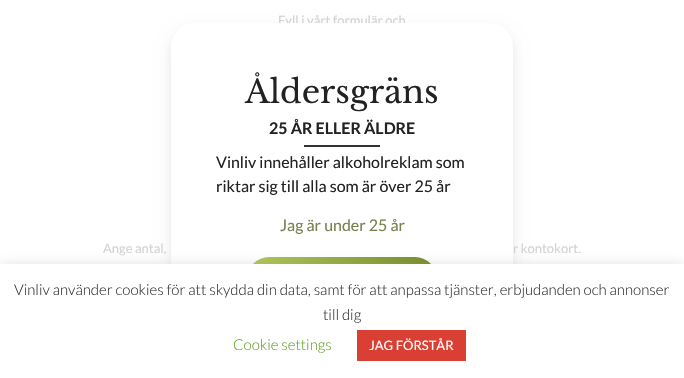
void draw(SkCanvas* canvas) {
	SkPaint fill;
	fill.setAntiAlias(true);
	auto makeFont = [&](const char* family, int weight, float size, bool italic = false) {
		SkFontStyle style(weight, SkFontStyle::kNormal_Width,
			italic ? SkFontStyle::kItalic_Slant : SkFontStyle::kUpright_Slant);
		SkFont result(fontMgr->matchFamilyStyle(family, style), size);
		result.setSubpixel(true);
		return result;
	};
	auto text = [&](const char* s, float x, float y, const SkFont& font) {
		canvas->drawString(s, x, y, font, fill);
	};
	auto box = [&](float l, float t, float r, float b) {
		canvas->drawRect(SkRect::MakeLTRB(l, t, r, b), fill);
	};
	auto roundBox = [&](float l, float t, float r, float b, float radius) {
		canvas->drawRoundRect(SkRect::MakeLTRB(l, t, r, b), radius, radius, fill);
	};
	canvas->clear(0xFFFFFFFF);
	fill.setColor(0x0D000000);
	fill.setMaskFilter(SkMaskFilter::MakeBlur(kNormal_SkBlurStyle, 8));
	canvas->drawRoundRect(SkRect::MakeLTRB(171, 31, 513, 364), 24, 24, fill);
	fill.setMaskFilter(nullptr);
	fill.setMaskFilter(SkMaskFilter::MakeBlur(kNormal_SkBlurStyle, 4));
	canvas->drawRoundRect(SkRect::MakeLTRB(171, 29, 513, 362), 24, 24, fill);
	fill.setMaskFilter(nullptr);
	auto font1 = makeFont("Lato", 400, 13);
	fill.setColor(0xFFD3D3D3);
	text("Fyll i vårt formulär och", 278, 25, font1);
	text("Ange antal,", 103, 253, font1);
	text("r kontokort.", 513, 253, font1);
	fill.setColor(0xFFFFFFFF);
	roundBox(171, 23, 513, 356, 24);
	auto font2 = makeFont("Libre Baskerville", 400, 32);
	fill.setColor(0xFF222222);
	text("Åldersgräns", 245, 103, font2);
	auto font3 = makeFont("Lato", 700, 16);
	text("25 ÅR ELLER ÄLDRE", 269, 134, font3);
	fill.setColor(0xFF333333);
	box(304, 145, 380, 147);
	auto font4 = makeFont("Lato", 400, 16);
	fill.setColor(0xFF222222);
	text("Vinliv innehåller alkoholreklam som", 216, 168, font4);
	text("riktar sig till alla som är över 25 år", 216, 192, font4);
	fill.setColor(0xFF78804D);
	text("Jag är under 25 år", 280, 231, font4);
	{
		const SkColor colors[] = {0xFFB1C954, 0xFF637711};
		const float stops[] = {0, 1};
		const SkPoint ends[] = {{292, 219}, {392, 338}};
		fill.setShader(SkGradientShader::MakeLinear(ends, colors, stops, 2, SkTileMode::kClamp));
		fill.setAlpha(255);
	}
	roundBox(247, 257, 437, 301, 22);
	fill.setShader(nullptr);
	fill.setColor(0x4DACABAB);
	fill.setMaskFilter(SkMaskFilter::MakeBlur(kNormal_SkBlurStyle, 5));
	canvas->drawRect(SkRect::MakeLTRB(0, 263, 684, 377), fill);
	fill.setMaskFilter(nullptr);
	fill.setColor(0xFFFFFFFF);
	box(0, 264, 684, 378);
	auto font5 = makeFont("Lato", 300, 15);
	fill.setColor(0xFF333333);
	text("Vinliv använder cookies för att skydda din data, samt för att anpassa tjänster, erbjudanden och annonser", 14, 295, font5);
	text("till dig", 323, 320, font5);
	fill.setColor(0xFF62A329);
	text("Cookie settings", 233, 350, font5);
	fill.setColor(0xFFD94033);
	box(357, 330, 466, 361);
	fill.setColor(0xFFFFFFFF);
	text("JAG FÖRSTÅR", 369, 350, font1);
}
